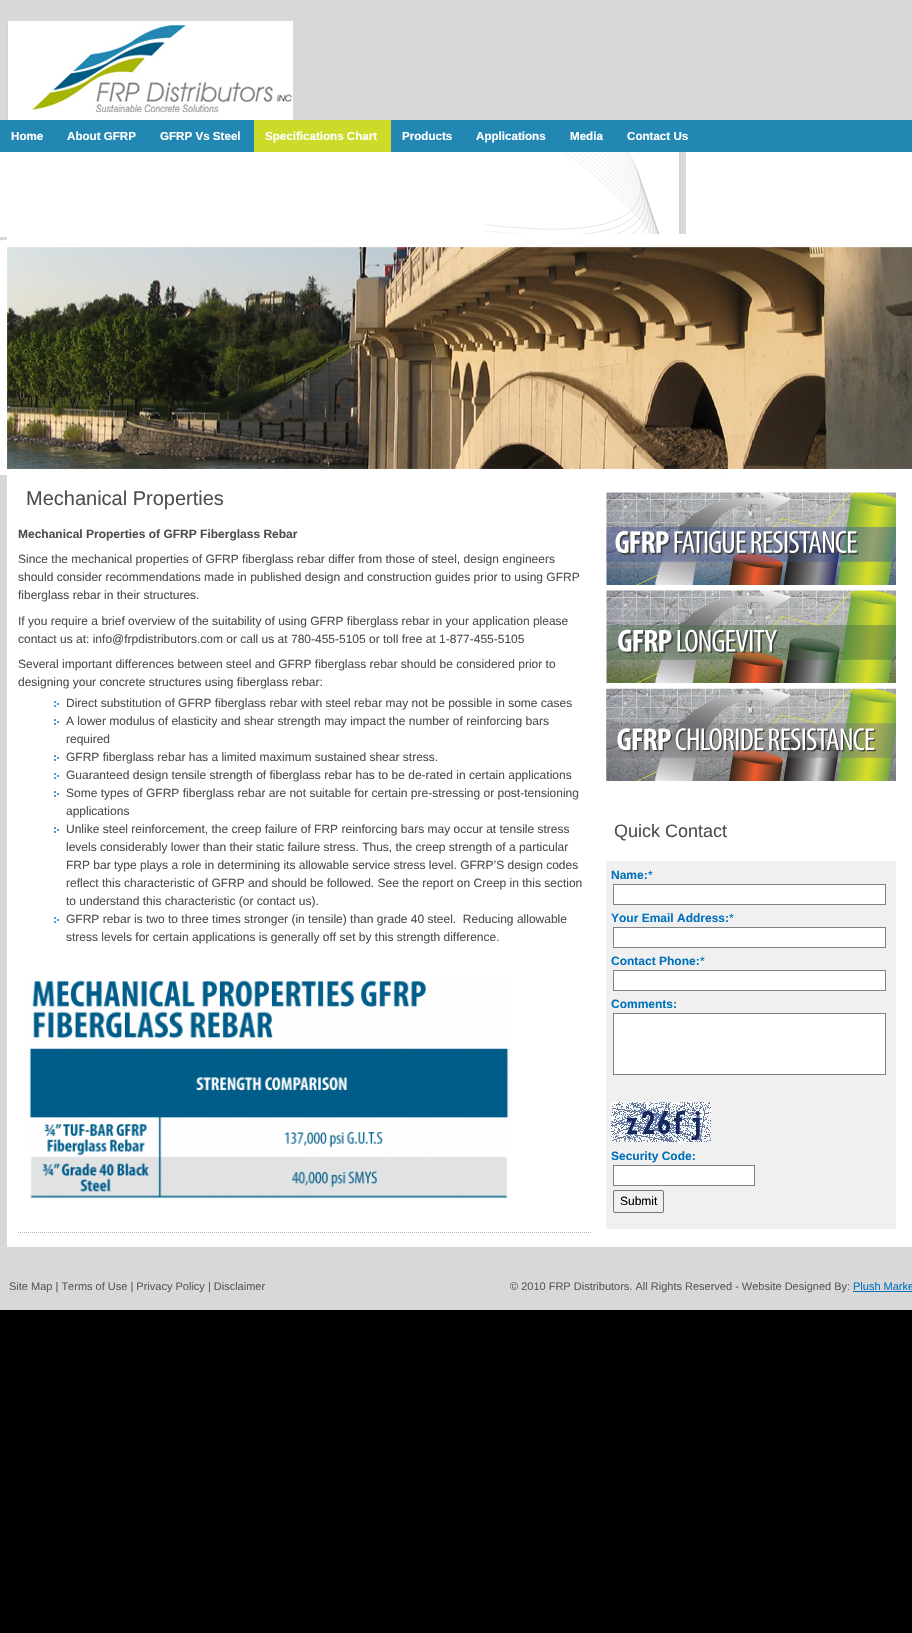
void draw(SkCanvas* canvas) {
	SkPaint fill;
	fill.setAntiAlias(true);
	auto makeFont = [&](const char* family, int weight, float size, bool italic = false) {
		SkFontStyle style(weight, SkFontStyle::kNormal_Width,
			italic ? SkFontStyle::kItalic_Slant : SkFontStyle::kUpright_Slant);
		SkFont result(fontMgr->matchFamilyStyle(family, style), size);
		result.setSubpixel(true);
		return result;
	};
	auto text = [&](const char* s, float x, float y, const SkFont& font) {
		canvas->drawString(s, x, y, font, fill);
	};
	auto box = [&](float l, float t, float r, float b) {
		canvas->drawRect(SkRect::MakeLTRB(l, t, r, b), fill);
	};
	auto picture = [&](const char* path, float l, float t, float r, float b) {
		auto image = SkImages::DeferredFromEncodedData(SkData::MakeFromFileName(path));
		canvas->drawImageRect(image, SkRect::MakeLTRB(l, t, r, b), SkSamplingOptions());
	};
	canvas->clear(0xFF000000);
	fill.setColor(0xFFD8D8D8);
	box(0, 0, 912, 1310);
	picture("image0.png", 7, 21, 293, 120);
	fill.setColor(0xFFFFFFFF);
	box(0, 152, 7, 237);
	box(7, 152, 912, 1247);
	picture("image1.png", 484, 152, 686, 234);
	fill.setColor(0xFF2287B3);
	box(0, 120, 912, 152);
	fill.setColor(0xFFCCDB2A);
	box(254, 120, 391, 152);
	picture("image2.png", 0, 240, 912, 475);
	picture("image3.png", 18, 1232, 591, 1233);
	picture("image4.png", 54, 701, 59, 707);
	picture("image4.png", 54, 719, 59, 725);
	picture("image4.png", 54, 755, 59, 761);
	picture("image4.png", 54, 773, 59, 779);
	picture("image4.png", 54, 791, 59, 797);
	picture("image4.png", 54, 827, 59, 833);
	picture("image4.png", 54, 917, 59, 923);
	picture("image5.png", 29, 980, 509, 1199);
	picture("image6.png", 606, 492, 896, 585);
	picture("image7.png", 606, 590, 896, 683);
	picture("image8.png", 606, 688, 896, 781);
	fill.setColor(0xFFF0F0F0);
	box(606, 861, 896, 1229);
	fill.setColor(0xFFFFFFFF);
	canvas->drawRect(SkRect::MakeLTRB(613.5f, 884.5f, 885.5f, 904.5f), fill);
	fill.setStyle(SkPaint::kStroke_Style);
	fill.setStrokeWidth(1);
	fill.setColor(0xFF808080);
	canvas->drawRect(SkRect::MakeLTRB(613.5f, 884.5f, 885.5f, 904.5f), fill);
	fill.setStyle(SkPaint::kFill_Style);
	fill.setColor(0xFFFFFFFF);
	canvas->drawRect(SkRect::MakeLTRB(613.5f, 927.5f, 885.5f, 947.5f), fill);
	fill.setStyle(SkPaint::kStroke_Style);
	fill.setColor(0xFF808080);
	canvas->drawRect(SkRect::MakeLTRB(613.5f, 927.5f, 885.5f, 947.5f), fill);
	fill.setStyle(SkPaint::kFill_Style);
	fill.setColor(0xFFFFFFFF);
	canvas->drawRect(SkRect::MakeLTRB(613.5f, 970.5f, 885.5f, 990.5f), fill);
	fill.setStyle(SkPaint::kStroke_Style);
	fill.setColor(0xFF808080);
	canvas->drawRect(SkRect::MakeLTRB(613.5f, 970.5f, 885.5f, 990.5f), fill);
	fill.setStyle(SkPaint::kFill_Style);
	fill.setColor(0xFFFFFFFF);
	canvas->drawRect(SkRect::MakeLTRB(613.5f, 1013.5f, 885.5f, 1074.5f), fill);
	fill.setStyle(SkPaint::kStroke_Style);
	fill.setColor(0xFF808080);
	canvas->drawRect(SkRect::MakeLTRB(613.5f, 1013.5f, 885.5f, 1074.5f), fill);
	picture("image9.png", 611, 1102, 711, 1142);
	fill.setStyle(SkPaint::kFill_Style);
	fill.setColor(0xFFFFFFFF);
	canvas->drawRect(SkRect::MakeLTRB(613.5f, 1165.5f, 754.5f, 1185.5f), fill);
	fill.setStyle(SkPaint::kStroke_Style);
	fill.setColor(0xFF808080);
	canvas->drawRect(SkRect::MakeLTRB(613.5f, 1165.5f, 754.5f, 1185.5f), fill);
	fill.setColor(0xFF767676);
	canvas->drawRoundRect(SkRect::MakeLTRB(613.5f, 1190.5f, 663.5f, 1212.5f), 1.5f, 1.5f, fill);
	fill.setStyle(SkPaint::kFill_Style);
	fill.setColor(0xFF0071BB);
	box(853, 1291, 912, 1292);
	auto font1 = makeFont("Liberation Sans", 700, 11.6f);
	fill.setColor(0xFFFFFFFF);
	text("Home", 11, 140, font1);
	text("About GFRP", 67, 140, font1);
	text("GFRP Vs Steel", 160, 140, font1);
	text("Specifications Chart", 265, 140, font1);
	text("Products", 402, 140, font1);
	text("Applications", 476, 140, font1);
	text("Media", 570, 140, font1);
	text("Contact Us", 627, 140, font1);
	auto font2 = makeFont("Liberation Sans", 400, 20);
	fill.setColor(0xFF4E4E4E);
	text("Mechanical Properties", 26, 505, font2);
	auto font3 = makeFont("Liberation Sans", 700, 12);
	text("Mechanical Properties of GFRP Fiberglass Rebar", 18, 538, font3);
	auto font4 = makeFont("Liberation Sans", 400, 12);
	text("Since the mechanical properties of GFRP fiberglass rebar differ from those of steel, design engineers", 18, 563, font4);
	text("should consider recommendations made in published design and construction guides prior to using GFRP", 18, 581, font4);
	text("fiberglass rebar in their structures.", 18, 599, font4);
	text("If you require a brief overview of the suitability of using GFRP fiberglass rebar in your application please", 18, 625, font4);
	text("contact us at: info@frpdistributors.com or call us at 780-455-5105 or toll free at 1-877-455-5105", 18, 643, font4);
	text("Several important differences between steel and GFRP fiberglass rebar should be considered prior to", 18, 668, font4);
	text("designing your concrete structures using fiberglass rebar:", 18, 686, font4);
	text("Direct substitution of GFRP fiberglass rebar with steel rebar may not be possible in some cases", 66, 707, font4);
	text("A lower modulus of elasticity and shear strength may impact the number of reinforcing bars", 66, 725, font4);
	text("required", 66, 743, font4);
	text("GFRP fiberglass rebar has a limited maximum sustained shear stress.", 66, 761, font4);
	text("Guaranteed design tensile strength of fiberglass rebar has to be de-rated in certain applications", 66, 779, font4);
	text("Some types of GFRP fiberglass rebar are not suitable for certain pre-stressing or post-tensioning", 66, 797, font4);
	text("applications", 66, 815, font4);
	text("Unlike steel reinforcement, the creep failure of FRP reinforcing bars may occur at tensile stress", 66, 833, font4);
	text("levels considerably lower than their static failure stress. Thus, the creep strength of a particular", 66, 851, font4);
	text("FRP bar type plays a role in determining its allowable service stress level. GFRP’S design codes", 66, 869, font4);
	text("reflect this characteristic of GFRP and should be followed. See the report on Creep in this section", 66, 887, font4);
	text("to understand this characteristic (or contact us).", 66, 905, font4);
	text("GFRP rebar is two to three times stronger (in tensile) than grade 40 steel.  Reducing allowable", 66, 923, font4);
	text("stress levels for certain applications is generally off set by this strength difference.", 66, 941, font4);
	auto font5 = makeFont("Liberation Sans", 400, 18);
	text("Quick Contact", 614, 837, font5);
	fill.setColor(0xFF0071BB);
	text("Name:", 611, 879, font3);
	text("*", 648, 879, font4);
	text("Your Email Address:", 611, 922, font3);
	text("*", 729, 922, font4);
	text("Contact Phone:", 611, 965, font3);
	text("*", 700, 965, font4);
	text("Comments:", 611, 1008, font3);
	text("Security Code:", 611, 1160, font3);
	fill.setColor(0xFF000000);
	text("Submit", 620, 1205, font4);
	auto font6 = makeFont("Liberation Sans", 400, 11);
	fill.setColor(0xFF5A5A5A);
	text("Site Map | Terms of Use | Privacy Policy | Disclaimer", 9, 1290, font6);
	text("© 2010 FRP Distributors. All Rights Reserved - Website Designed By:", 510, 1290, font6);
	fill.setColor(0xFF0071BB);
	text("Plush Marke", 853, 1290, font6);
}
